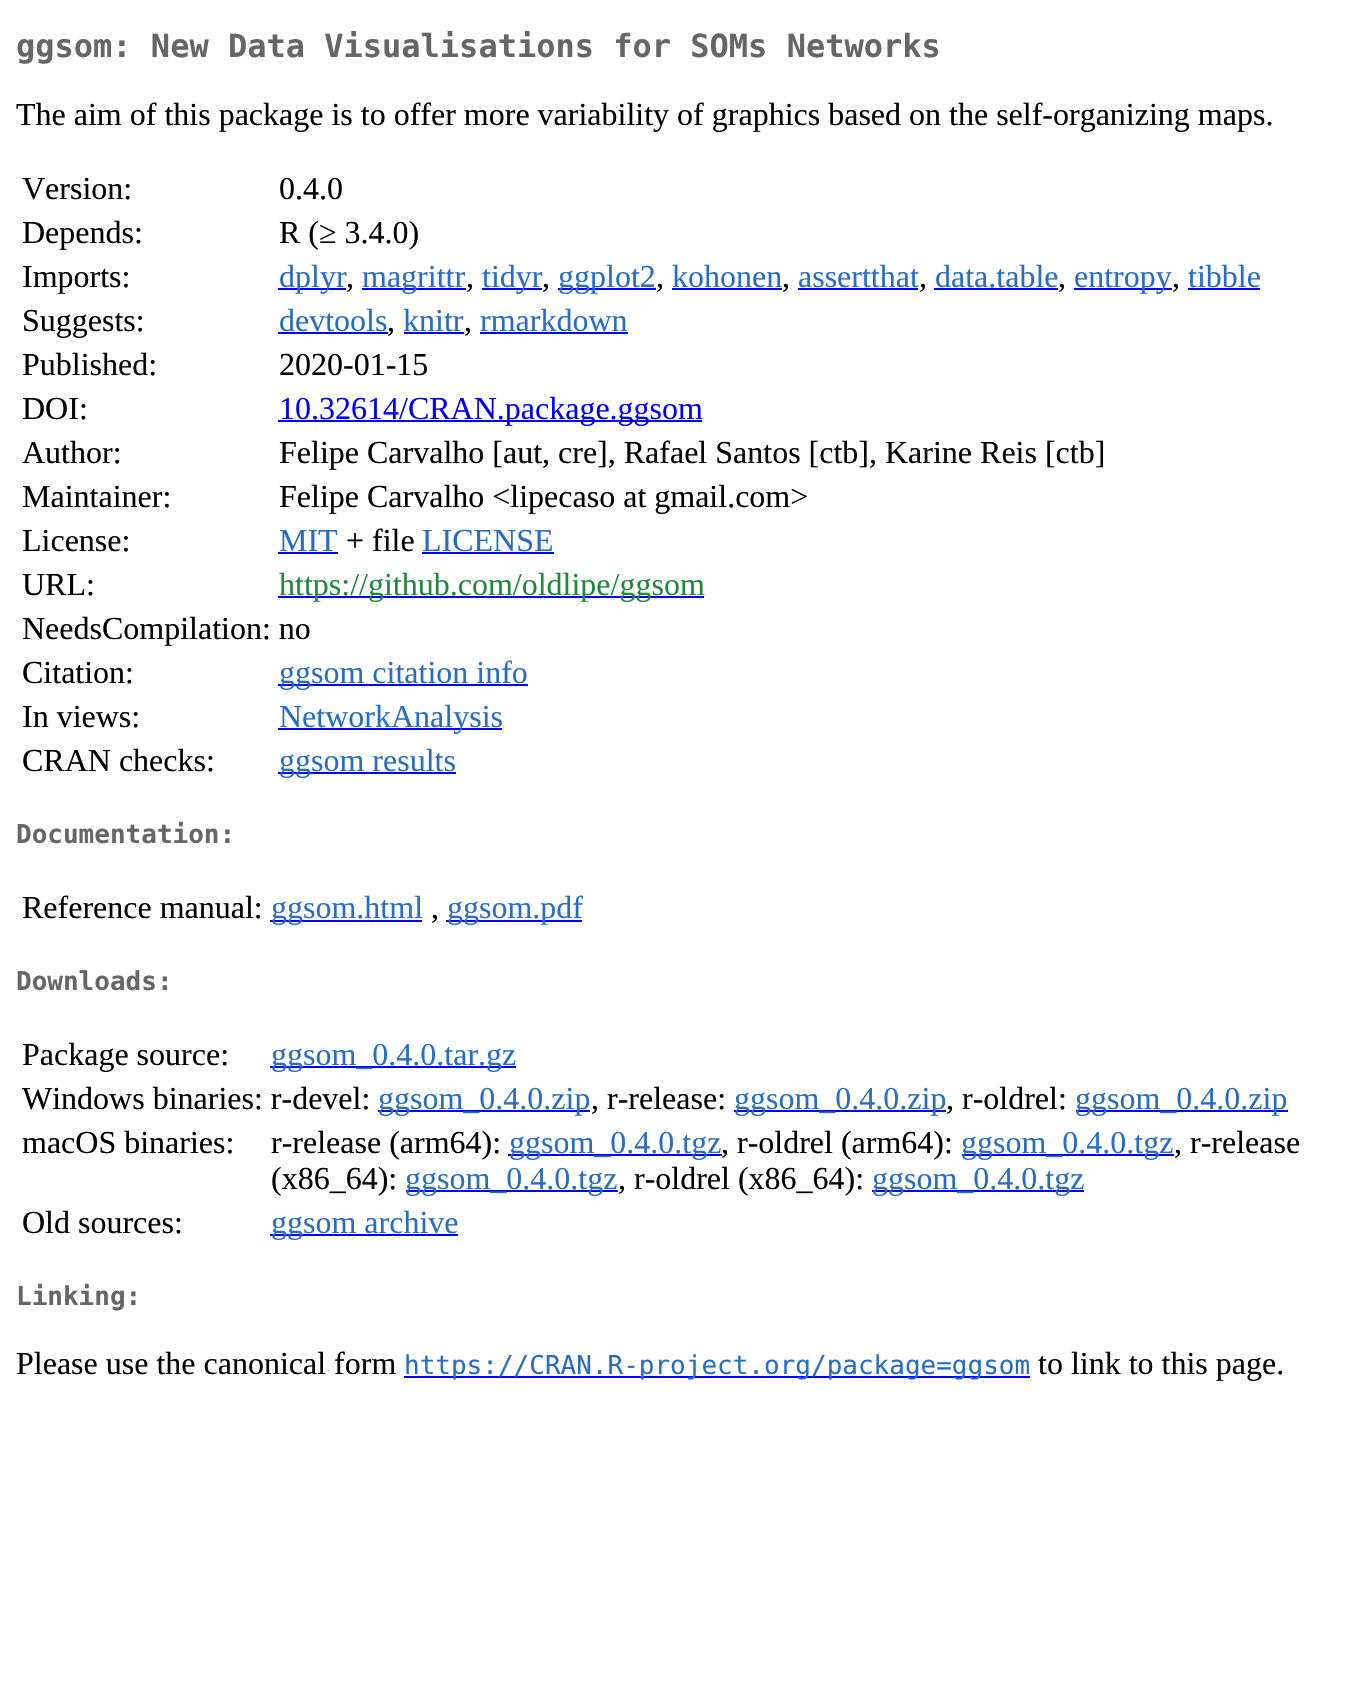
void draw(SkCanvas* canvas) {
	SkPaint fill;
	fill.setAntiAlias(true);
	auto makeFont = [&](const char* family, int weight, float size, bool italic = false) {
		SkFontStyle style(weight, SkFontStyle::kNormal_Width,
			italic ? SkFontStyle::kItalic_Slant : SkFontStyle::kUpright_Slant);
		SkFont result(fontMgr->matchFamilyStyle(family, style), size);
		result.setSubpixel(true);
		return result;
	};
	auto text = [&](const char* s, float x, float y, const SkFont& font) {
		canvas->drawString(s, x, y, font, fill);
	};
	auto box = [&](float l, float t, float r, float b) {
		canvas->drawRect(SkRect::MakeLTRB(l, t, r, b), fill);
	};
	canvas->clear(0xFFFFFFFF);
	fill.setColor(0xFF0000FF);
	box(278, 288, 346, 290);
	box(362, 288, 466, 290);
	box(482, 288, 542, 290);
	box(558, 288, 656, 290);
	box(672, 288, 782, 290);
	box(798, 288, 918, 290);
	box(934, 288, 1058, 290);
	box(1074, 288, 1172, 290);
	box(1188, 288, 1260, 290);
	box(278, 332, 388, 334);
	box(404, 332, 464, 334);
	box(480, 332, 628, 334);
	box(278, 420, 702, 422);
	box(278, 552, 338, 554);
	box(422, 552, 554, 554);
	box(278, 596, 704, 598);
	box(278, 684, 528, 686);
	box(278, 728, 502, 730);
	box(278, 772, 456, 774);
	box(270, 920, 422, 922);
	box(446, 920, 582, 922);
	box(270, 1066, 516, 1068);
	box(378, 1110, 590, 1112);
	box(734, 1110, 946, 1112);
	box(1076, 1110, 1288, 1112);
	box(508, 1154, 722, 1156);
	box(962, 1154, 1174, 1156);
	box(406, 1190, 618, 1192);
	box(872, 1190, 1084, 1192);
	box(270, 1234, 458, 1236);
	box(404, 1376, 1030, 1378);
	auto font1 = makeFont("DejaVu Sans Mono", 700, 32);
	fill.setColor(0xFF666666);
	text("ggsom: New Data Visualisations for SOMs Networks", 16, 57, font1);
	auto font2 = makeFont("Liberation Serif", 400, 32);
	fill.setColor(0xFF000000);
	text("The aim of this package is to offer more variability of graphics based on the self-organizing maps.", 16, 125, font2);
	text("Version:", 22, 199, font2);
	text("0.4.0", 279, 199, font2);
	text("Depends:", 22, 243, font2);
	text("R (≥ 3.4.0)", 279, 243, font2);
	text("Imports:", 22, 287, font2);
	fill.setColor(0xFF276DC3);
	text("dplyr", 279, 287, font2);
	fill.setColor(0xFF000000);
	text(",", 346, 287, font2);
	fill.setColor(0xFF276DC3);
	text("magrittr", 362, 287, font2);
	fill.setColor(0xFF000000);
	text(",", 466, 287, font2);
	fill.setColor(0xFF276DC3);
	text("tidyr", 482, 287, font2);
	fill.setColor(0xFF000000);
	text(",", 542, 287, font2);
	fill.setColor(0xFF276DC3);
	text("ggplot2", 558, 287, font2);
	fill.setColor(0xFF000000);
	text(",", 656, 287, font2);
	fill.setColor(0xFF276DC3);
	text("kohonen", 672, 287, font2);
	fill.setColor(0xFF000000);
	text(",", 782, 287, font2);
	fill.setColor(0xFF276DC3);
	text("assertthat", 798, 287, font2);
	fill.setColor(0xFF000000);
	text(",", 919, 287, font2);
	fill.setColor(0xFF276DC3);
	text("data.table", 935, 287, font2);
	fill.setColor(0xFF000000);
	text(",", 1058, 287, font2);
	fill.setColor(0xFF276DC3);
	text("entropy", 1074, 287, font2);
	fill.setColor(0xFF000000);
	text(",", 1172, 287, font2);
	fill.setColor(0xFF276DC3);
	text("tibble", 1188, 287, font2);
	fill.setColor(0xFF000000);
	text("Suggests:", 22, 331, font2);
	fill.setColor(0xFF276DC3);
	text("devtools", 279, 331, font2);
	fill.setColor(0xFF000000);
	text(",", 387, 331, font2);
	fill.setColor(0xFF276DC3);
	text("knitr", 403, 331, font2);
	fill.setColor(0xFF000000);
	text(",", 464, 331, font2);
	fill.setColor(0xFF276DC3);
	text("rmarkdown", 480, 331, font2);
	fill.setColor(0xFF000000);
	text("Published:", 22, 375, font2);
	text("2020-01-15", 279, 375, font2);
	text("DOI:", 22, 419, font2);
	fill.setColor(0xFF0000FF);
	text("10.32614/CRAN.package.ggsom", 279, 419, font2);
	fill.setColor(0xFF000000);
	text("Author:", 22, 463, font2);
	text("Felipe Carvalho [aut, cre], Rafael Santos [ctb], Karine Reis [ctb]", 279, 463, font2);
	text("Maintainer:", 22, 507, font2);
	text("Felipe Carvalho <lipecaso at gmail.com>", 279, 507, font2);
	text("License:", 22, 551, font2);
	fill.setColor(0xFF276DC3);
	text("MIT", 279, 551, font2);
	fill.setColor(0xFF000000);
	text("+ file", 346, 551, font2);
	fill.setColor(0xFF276DC3);
	text("LICENSE", 422, 551, font2);
	fill.setColor(0xFF000000);
	text("URL:", 22, 595, font2);
	fill.setColor(0xFF1F883D);
	text("https://github.com/oldlipe/ggsom", 279, 595, font2);
	fill.setColor(0xFF000000);
	text("NeedsCompilation: no", 22, 639, font2);
	text("Citation:", 22, 683, font2);
	fill.setColor(0xFF276DC3);
	text("ggsom citation info", 279, 683, font2);
	fill.setColor(0xFF000000);
	text("In views:", 22, 727, font2);
	fill.setColor(0xFF276DC3);
	text("NetworkAnalysis", 279, 727, font2);
	fill.setColor(0xFF000000);
	text("CRAN checks:", 22, 771, font2);
	fill.setColor(0xFF276DC3);
	text("ggsom results", 279, 771, font2);
	auto font3 = makeFont("DejaVu Sans Mono", 700, 26);
	fill.setColor(0xFF666666);
	text("Documentation:", 16, 843, font3);
	fill.setColor(0xFF000000);
	text("Reference manual:", 22, 918, font2);
	fill.setColor(0xFF276DC3);
	text("ggsom.html", 271, 918, font2);
	fill.setColor(0xFF000000);
	text(",", 431, 918, font2);
	fill.setColor(0xFF276DC3);
	text("ggsom.pdf", 447, 918, font2);
	fill.setColor(0xFF666666);
	text("Downloads:", 16, 990, font3);
	fill.setColor(0xFF000000);
	text("Package source:", 22, 1065, font2);
	fill.setColor(0xFF276DC3);
	text("ggsom_0.4.0.tar.gz", 271, 1065, font2);
	fill.setColor(0xFF000000);
	text("Windows binaries: r-devel:", 22, 1109, font2);
	fill.setColor(0xFF276DC3);
	text("ggsom_0.4.0.zip", 378, 1109, font2);
	fill.setColor(0xFF000000);
	text(", r-release:", 591, 1109, font2);
	fill.setColor(0xFF276DC3);
	text("ggsom_0.4.0.zip", 734, 1109, font2);
	fill.setColor(0xFF000000);
	text(", r-oldrel:", 946, 1109, font2);
	fill.setColor(0xFF276DC3);
	text("ggsom_0.4.0.zip", 1075, 1109, font2);
	fill.setColor(0xFF000000);
	text("macOS binaries:", 22, 1153, font2);
	text("r-release (arm64):", 271, 1153, font2);
	fill.setColor(0xFF276DC3);
	text("ggsom_0.4.0.tgz", 509, 1153, font2);
	fill.setColor(0xFF000000);
	text(", r-oldrel (arm64):", 721, 1153, font2);
	fill.setColor(0xFF276DC3);
	text("ggsom_0.4.0.tgz", 961, 1153, font2);
	fill.setColor(0xFF000000);
	text(", r-release", 1174, 1153, font2);
	text("(x86_64):", 271, 1189, font2);
	fill.setColor(0xFF276DC3);
	text("ggsom_0.4.0.tgz", 405, 1189, font2);
	fill.setColor(0xFF000000);
	text(", r-oldrel (x86_64):", 618, 1189, font2);
	fill.setColor(0xFF276DC3);
	text("ggsom_0.4.0.tgz", 872, 1189, font2);
	fill.setColor(0xFF000000);
	text("Old sources:", 22, 1233, font2);
	fill.setColor(0xFF276DC3);
	text("ggsom archive", 271, 1233, font2);
	fill.setColor(0xFF666666);
	text("Linking:", 16, 1305, font3);
	fill.setColor(0xFF000000);
	text("Please use the canonical form", 16, 1374, font2);
	auto font4 = makeFont("DejaVu Sans Mono", 400, 26);
	fill.setColor(0xFF276DC3);
	text("https://CRAN.R-project.org/package=ggsom", 404, 1374, font4);
	fill.setColor(0xFF000000);
	text("to link to this page.", 1038, 1374, font2);
}
